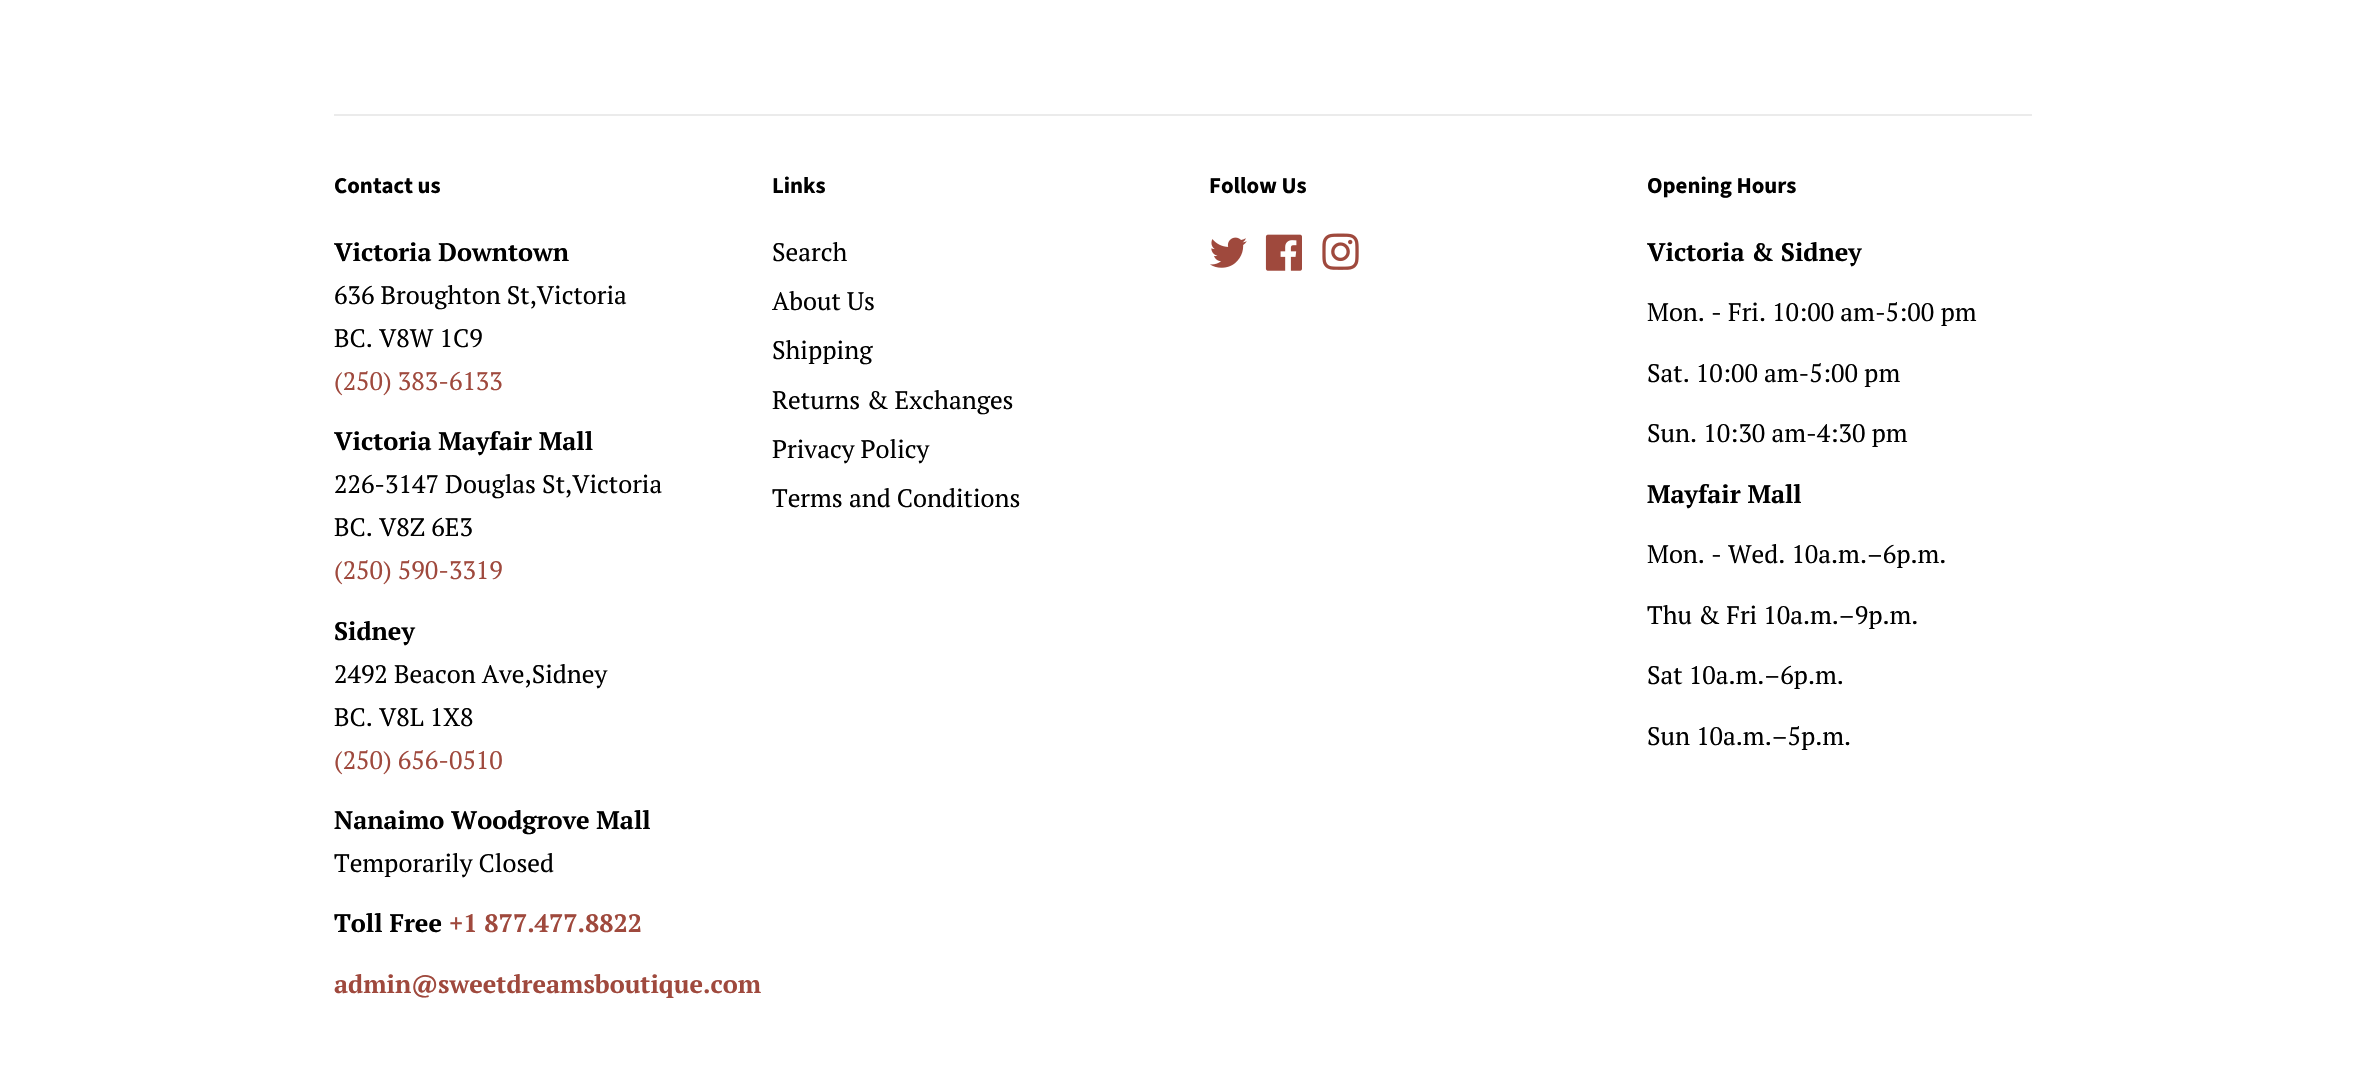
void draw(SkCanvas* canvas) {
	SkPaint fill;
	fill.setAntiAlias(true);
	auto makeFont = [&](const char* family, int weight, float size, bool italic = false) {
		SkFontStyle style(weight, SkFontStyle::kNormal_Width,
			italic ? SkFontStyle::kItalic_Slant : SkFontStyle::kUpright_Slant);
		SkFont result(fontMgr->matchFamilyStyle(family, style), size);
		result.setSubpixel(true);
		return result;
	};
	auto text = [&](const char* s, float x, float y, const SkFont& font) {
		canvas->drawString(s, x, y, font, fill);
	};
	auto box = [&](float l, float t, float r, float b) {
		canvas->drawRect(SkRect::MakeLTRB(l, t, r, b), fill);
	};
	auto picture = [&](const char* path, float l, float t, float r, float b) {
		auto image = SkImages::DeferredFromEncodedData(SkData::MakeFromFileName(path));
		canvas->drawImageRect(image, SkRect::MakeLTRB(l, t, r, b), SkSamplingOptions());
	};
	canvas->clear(0xFFFFFFFF);
	fill.setColor(0xFFEBEBEB);
	box(334, 114, 2032, 116);
	picture("image0.png", 1210, 237, 1247, 268);
	picture("image1.png", 1265, 234, 1302, 271);
	picture("image2.png", 1322, 233, 1359, 270);
	auto font1 = makeFont("Source Sans Pro", 700, 22.75f);
	fill.setColor(0xFF000000);
	text("Contact us", 334, 193, font1);
	auto font2 = makeFont("PT Serif", 700, 25.25f);
	text("Victoria Downtown", 334, 261, font2);
	auto font3 = makeFont("PT Serif", 400, 25.25f);
	text("636 Broughton St,Victoria", 334, 304, font3);
	text("BC. V8W 1C9", 334, 347, font3);
	fill.setColor(0xFF9F493D);
	text("(250) 383-6133", 334, 390, font3);
	fill.setColor(0xFF000000);
	text("Victoria Mayfair Mall", 334, 450, font2);
	text("226-3147 Douglas St,Victoria", 334, 493, font3);
	text("BC. V8Z 6E3", 334, 536, font3);
	fill.setColor(0xFF9F493D);
	text("(250) 590-3319", 334, 579, font3);
	fill.setColor(0xFF000000);
	text("Sidney", 334, 640, font2);
	text("2492 Beacon Ave,Sidney", 334, 683, font3);
	text("BC. V8L 1X8", 334, 726, font3);
	fill.setColor(0xFF9F493D);
	text("(250) 656-0510", 334, 769, font3);
	fill.setColor(0xFF000000);
	text("Nanaimo Woodgrove Mall", 334, 829, font2);
	text("Temporarily Closed", 334, 872, font3);
	text("Toll Free", 334, 932, font2);
	fill.setColor(0xFF9F493D);
	text("+1 877.477.8822", 449, 932, font2);
	text("admin@sweetdreamsboutique.com", 334, 993, font2);
	fill.setColor(0xFF000000);
	text("Links", 772, 193, font1);
	text("Search", 772, 261, font3);
	text("About Us", 772, 310, font3);
	text("Shipping", 772, 359, font3);
	text("Returns & Exchanges", 772, 409, font3);
	text("Privacy Policy", 772, 458, font3);
	text("Terms and Conditions", 772, 507, font3);
	text("Follow Us", 1209, 193, font1);
	text("Opening Hours", 1647, 193, font1);
	text("Victoria & Sidney", 1647, 261, font2);
	text("Mon. - Fri. 10:00 am-5:00 pm", 1647, 321, font3);
	text("Sat. 10:00 am-5:00 pm", 1647, 382, font3);
	text("Sun. 10:30 am-4:30 pm", 1647, 442, font3);
	text("Mayfair Mall", 1647, 503, font2);
	text("Mon. - Wed. 10 a.m.–6 p.m.", 1647, 563, font3);
	text("Thu & Fri 10 a.m.–9 p.m.", 1647, 624, font3);
	text("Sat 10 a.m.–6 p.m.", 1647, 684, font3);
	text("Sun 10 a.m.–5 p.m.", 1647, 745, font3);
}
